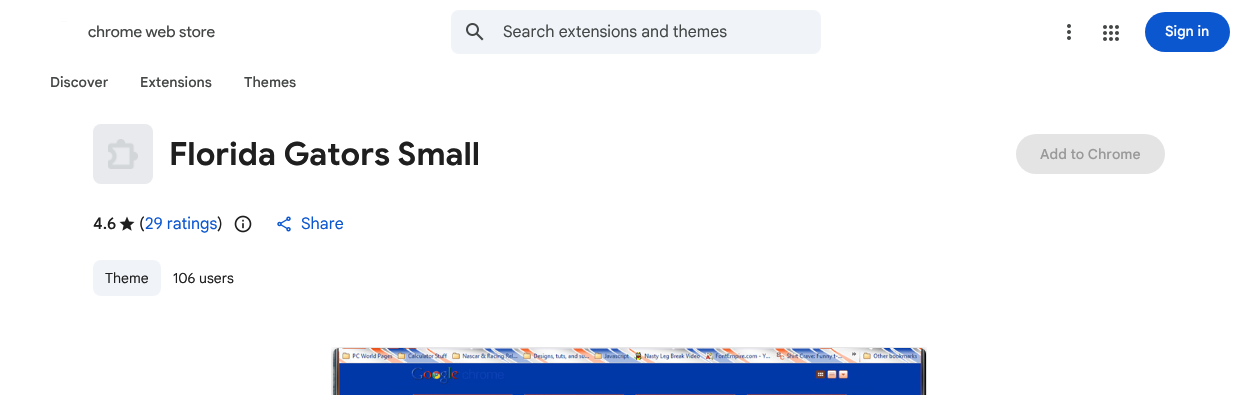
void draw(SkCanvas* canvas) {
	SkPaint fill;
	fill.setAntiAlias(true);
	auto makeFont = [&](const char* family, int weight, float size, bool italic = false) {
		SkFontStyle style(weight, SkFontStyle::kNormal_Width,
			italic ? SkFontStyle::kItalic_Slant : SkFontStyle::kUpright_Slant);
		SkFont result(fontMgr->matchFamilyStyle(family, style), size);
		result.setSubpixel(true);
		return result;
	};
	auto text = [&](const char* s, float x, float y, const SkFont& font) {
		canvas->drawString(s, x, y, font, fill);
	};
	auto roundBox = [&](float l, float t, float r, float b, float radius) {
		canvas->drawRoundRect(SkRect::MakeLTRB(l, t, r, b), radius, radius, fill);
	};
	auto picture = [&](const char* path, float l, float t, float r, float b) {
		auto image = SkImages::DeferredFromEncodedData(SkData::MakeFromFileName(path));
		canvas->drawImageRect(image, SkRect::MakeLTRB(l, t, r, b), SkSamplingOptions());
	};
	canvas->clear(0xFFFFFFFF);
	picture("image0.png", 61, 21, 67, 22);
	fill.setColor(0xFFF0F4F9);
	roundBox(451, 10, 821, 54, 8);
	picture("image1.png", 466, 23, 484, 41);
	picture("image2.png", 1067, 24, 1071, 40);
	picture("image3.png", 1103, 25, 1119, 41);
	fill.setColor(0xFF0B57D0);
	roundBox(1145, 12, 1230, 52, 20);
	picture("image4.png", 93, 124, 153, 184);
	fill.setColor(0xFFE4E4E4);
	roundBox(1016, 134, 1165, 174, 20);
	picture("image5.png", 119, 216, 135, 231);
	picture("image6.png", 234, 215, 252, 233);
	picture("image7.png", 277, 216, 291, 232);
	fill.setColor(0xFFF0F4F9);
	roundBox(93, 260, 161, 296, 8);
	picture("image8.png", 331, 347, 927, 395);
	auto font1 = makeFont("Product Sans", 400, 16);
	fill.setColor(0xFF444746);
	text("chrome web store", 88, 37, font1);
	auto font2 = makeFont("Google Sans", 400, 16);
	text("Search extensions and themes", 503, 37, font2);
	auto font3 = makeFont("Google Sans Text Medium", 500, 14);
	fill.setColor(0xFFFFFFFF);
	text("Sign in", 1165, 36, font3);
	fill.setColor(0xFF444746);
	text("Discover", 50, 87, font3);
	text("Extensions", 140, 87, font3);
	text("Themes", 244, 87, font3);
	auto font4 = makeFont("Google Sans", 700, 32);
	fill.setColor(0xFF1F1F1F);
	text("Florida Gators Small", 169, 165, font4);
	fill.setColor(0xFF999999);
	text("Add to Chrome", 1040, 159, font3);
	auto font5 = makeFont("Google Sans", 500, 16);
	fill.setColor(0xFF1F1F1F);
	text("4.6", 93, 229, font5);
	text("(", 139, 229, font2);
	fill.setColor(0xFF0B57D0);
	text("29 ratings", 145, 229, font2);
	fill.setColor(0xFF1F1F1F);
	text(")", 217, 229, font2);
	auto font6 = makeFont("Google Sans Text", 400, 16);
	fill.setColor(0xFF0B57D0);
	text("Share", 301, 229, font6);
	auto font7 = makeFont("Google Sans", 400, 14);
	fill.setColor(0xFF1F1F1F);
	text("Theme", 105, 283, font7);
	text("106 users", 173, 283, font7);
}
